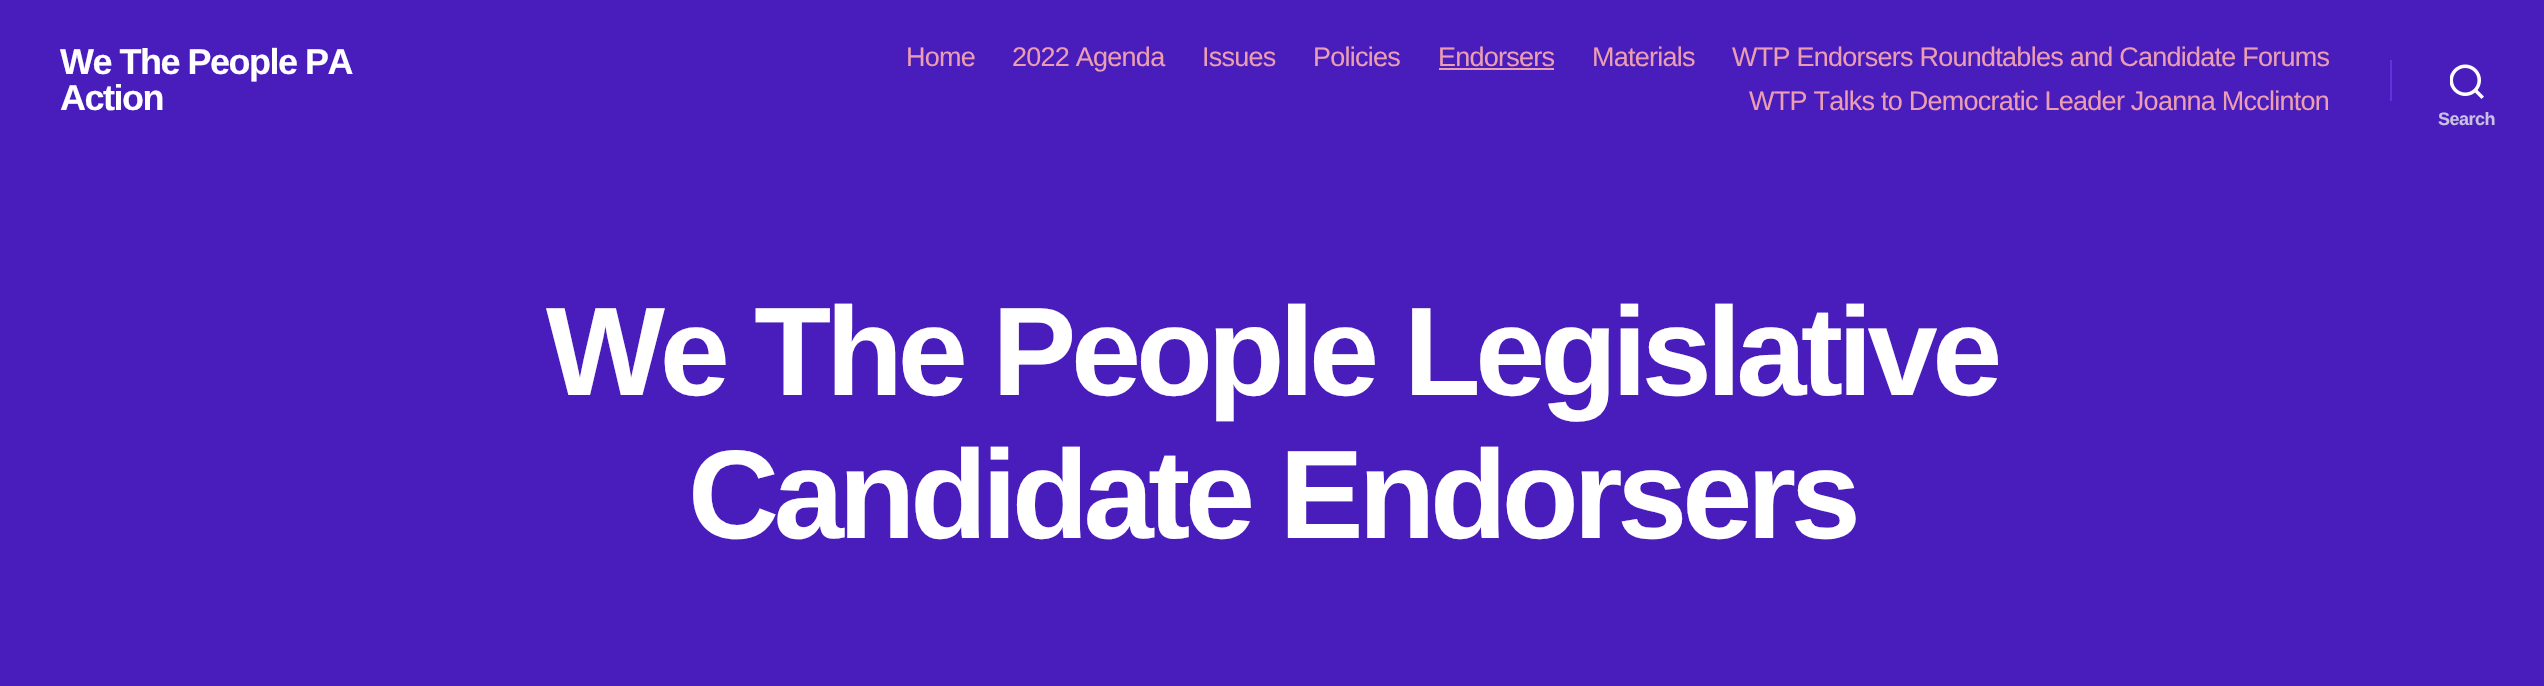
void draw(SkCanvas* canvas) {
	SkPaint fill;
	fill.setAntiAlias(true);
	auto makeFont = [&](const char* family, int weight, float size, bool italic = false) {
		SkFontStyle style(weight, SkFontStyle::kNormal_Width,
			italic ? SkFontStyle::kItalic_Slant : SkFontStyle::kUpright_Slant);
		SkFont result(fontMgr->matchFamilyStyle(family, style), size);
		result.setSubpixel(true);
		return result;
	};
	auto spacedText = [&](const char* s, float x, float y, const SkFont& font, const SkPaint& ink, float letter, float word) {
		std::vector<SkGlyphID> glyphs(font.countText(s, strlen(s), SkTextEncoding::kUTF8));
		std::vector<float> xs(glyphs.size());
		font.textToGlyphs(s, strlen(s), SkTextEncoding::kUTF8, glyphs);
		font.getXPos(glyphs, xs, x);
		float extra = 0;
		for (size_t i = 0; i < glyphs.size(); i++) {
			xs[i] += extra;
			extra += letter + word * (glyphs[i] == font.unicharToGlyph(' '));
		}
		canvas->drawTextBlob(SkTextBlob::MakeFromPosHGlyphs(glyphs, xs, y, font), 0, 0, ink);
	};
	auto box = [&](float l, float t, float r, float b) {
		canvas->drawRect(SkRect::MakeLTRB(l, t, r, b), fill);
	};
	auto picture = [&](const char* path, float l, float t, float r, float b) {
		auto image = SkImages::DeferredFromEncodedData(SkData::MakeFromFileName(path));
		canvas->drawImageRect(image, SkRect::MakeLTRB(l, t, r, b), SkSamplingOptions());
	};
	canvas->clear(0xFF491CBC);
	fill.setColor(0xFFEB9DB2);
	box(1439, 68, 1554, 70);
	fill.setColor(0xFF6330E2);
	box(2390, 60, 2392, 101);
	picture("image0.png", 2450, 64, 2484, 99);
	auto font1 = makeFont("Liberation Sans", 700, 36);
	fill.setColor(0xFFFFFFFF);
	spacedText("We The People PA", 60, 74, font1, fill, -1.5f, 0);
	spacedText("Action", 60, 110, font1, fill, -1.5f, 0);
	auto font2 = makeFont("Liberation Sans", 400, 27);
	fill.setColor(0xFFEB9DB2);
	spacedText("Home", 906, 66, font2, fill, -0.75f, 0);
	spacedText("2022 Agenda", 1012, 66, font2, fill, -0.75f, 0);
	spacedText("Issues", 1202, 66, font2, fill, -0.75f, 0);
	spacedText("Policies", 1313, 66, font2, fill, -0.75f, 0);
	spacedText("Endorsers", 1438, 66, font2, fill, -0.75f, 0);
	spacedText("Materials", 1592, 66, font2, fill, -0.75f, 0);
	spacedText("WTP Endorsers Roundtables and Candidate Forums", 1732, 66, font2, fill, -0.75f, 0);
	spacedText("WTP Talks to Democratic Leader Joanna Mcclinton", 1749, 110, font2, fill, -0.75f, 0);
	auto font3 = makeFont("Liberation Sans", 700, 18);
	fill.setColor(0xFFC9C0E2);
	spacedText("Search", 2438, 125, font3, fill, -0.5f, 0);
	auto font4 = makeFont("Liberation Sans", 700, 126);
	fill.setColor(0xFFFFFFFF);
	spacedText("We The People Legislative", 546, 395, font4, fill, -5.25f, 0);
	spacedText("Candidate Endorsers", 688, 538, font4, fill, -5.25f, 0);
}
